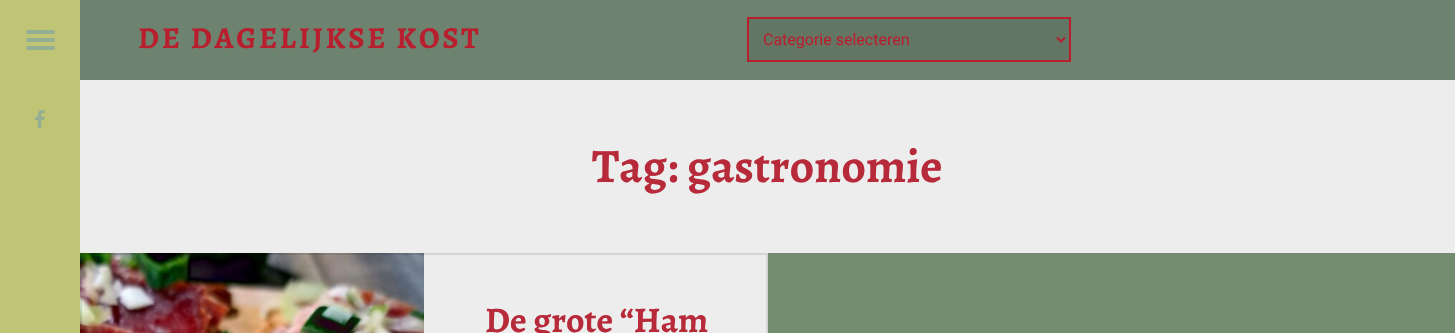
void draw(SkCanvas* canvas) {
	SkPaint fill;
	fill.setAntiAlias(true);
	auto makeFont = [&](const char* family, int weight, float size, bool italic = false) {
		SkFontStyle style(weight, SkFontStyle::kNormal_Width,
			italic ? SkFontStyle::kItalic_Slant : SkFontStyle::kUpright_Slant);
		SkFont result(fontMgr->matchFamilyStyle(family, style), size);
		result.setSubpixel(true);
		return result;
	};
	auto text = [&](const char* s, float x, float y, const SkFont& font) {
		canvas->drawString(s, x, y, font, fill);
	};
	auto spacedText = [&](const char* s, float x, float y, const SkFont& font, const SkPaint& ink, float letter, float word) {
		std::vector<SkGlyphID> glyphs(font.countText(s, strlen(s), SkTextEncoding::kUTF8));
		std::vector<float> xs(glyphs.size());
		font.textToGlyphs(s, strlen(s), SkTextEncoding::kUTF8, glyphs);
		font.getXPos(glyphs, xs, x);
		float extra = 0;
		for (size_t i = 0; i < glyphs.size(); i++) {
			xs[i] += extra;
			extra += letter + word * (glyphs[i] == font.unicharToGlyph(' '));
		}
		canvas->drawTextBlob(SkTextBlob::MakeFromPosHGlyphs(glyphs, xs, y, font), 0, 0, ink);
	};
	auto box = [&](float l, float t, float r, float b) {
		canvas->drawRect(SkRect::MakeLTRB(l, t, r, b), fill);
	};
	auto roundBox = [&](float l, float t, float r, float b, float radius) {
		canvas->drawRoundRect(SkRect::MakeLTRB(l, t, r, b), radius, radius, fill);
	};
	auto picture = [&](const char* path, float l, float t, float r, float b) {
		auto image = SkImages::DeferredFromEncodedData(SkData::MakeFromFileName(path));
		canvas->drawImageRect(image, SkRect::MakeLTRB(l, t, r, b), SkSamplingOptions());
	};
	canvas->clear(0xFFEDEDED);
	fill.setColor(0xFFC0C475);
	box(0, 0, 80, 333);
	fill.setColor(0xFF92AF94);
	roundBox(26, 30, 55, 34, 2);
	roundBox(26, 38, 55, 42, 2);
	roundBox(26, 46, 55, 50, 2);
	picture("image0.png", 35, 110, 45, 129);
	fill.setColor(0xFF6E836F);
	box(80, 0, 1455, 80);
	fill.setColor(0xFF637664);
	canvas->drawRect(SkRect::MakeLTRB(748, 18, 1070, 61), fill);
	fill.setStyle(SkPaint::kStroke_Style);
	fill.setStrokeWidth(2);
	fill.setColor(0xFFB71F2E);
	canvas->drawRect(SkRect::MakeLTRB(748, 18, 1070, 61), fill);
	canvas->drawPath(SkPathBuilder().moveTo(1057, 37.5f).lineTo(1061, 41.5f).lineTo(1065, 37.5f).detach(), fill);
	fill.setStyle(SkPaint::kFill_Style);
	fill.setColor(0xFF738C70);
	box(768, 253, 1455, 333);
	picture("image1.png", 80, 253, 424, 333);
	fill.setStyle(SkPaint::kStroke_Style);
	fill.setColor(0x1A000000);
	canvas->drawRect(SkRect::MakeLTRB(81, 254, 767, 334), fill);
	auto font1 = makeFont("Alegreya", 700, 30.4f);
	fill.setStyle(SkPaint::kFill_Style);
	fill.setColor(0xFFB71F2E);
	spacedText("DE DAGELIJKSE KOST", 138, 48, font1, fill, 2.75f, 0);
	auto font2 = makeFont("Roboto", 400, 16);
	text("Categorie selecteren", 763, 45, font2);
	auto font3 = makeFont("Alegreya", 700, 48);
	fill.setColor(0xFFB72A3A);
	text("Tag: gastronomie", 592, 182, font3);
	auto font4 = makeFont("Alegreya", 700, 36);
	text("De grote “Ham", 485, 332, font4);
}
